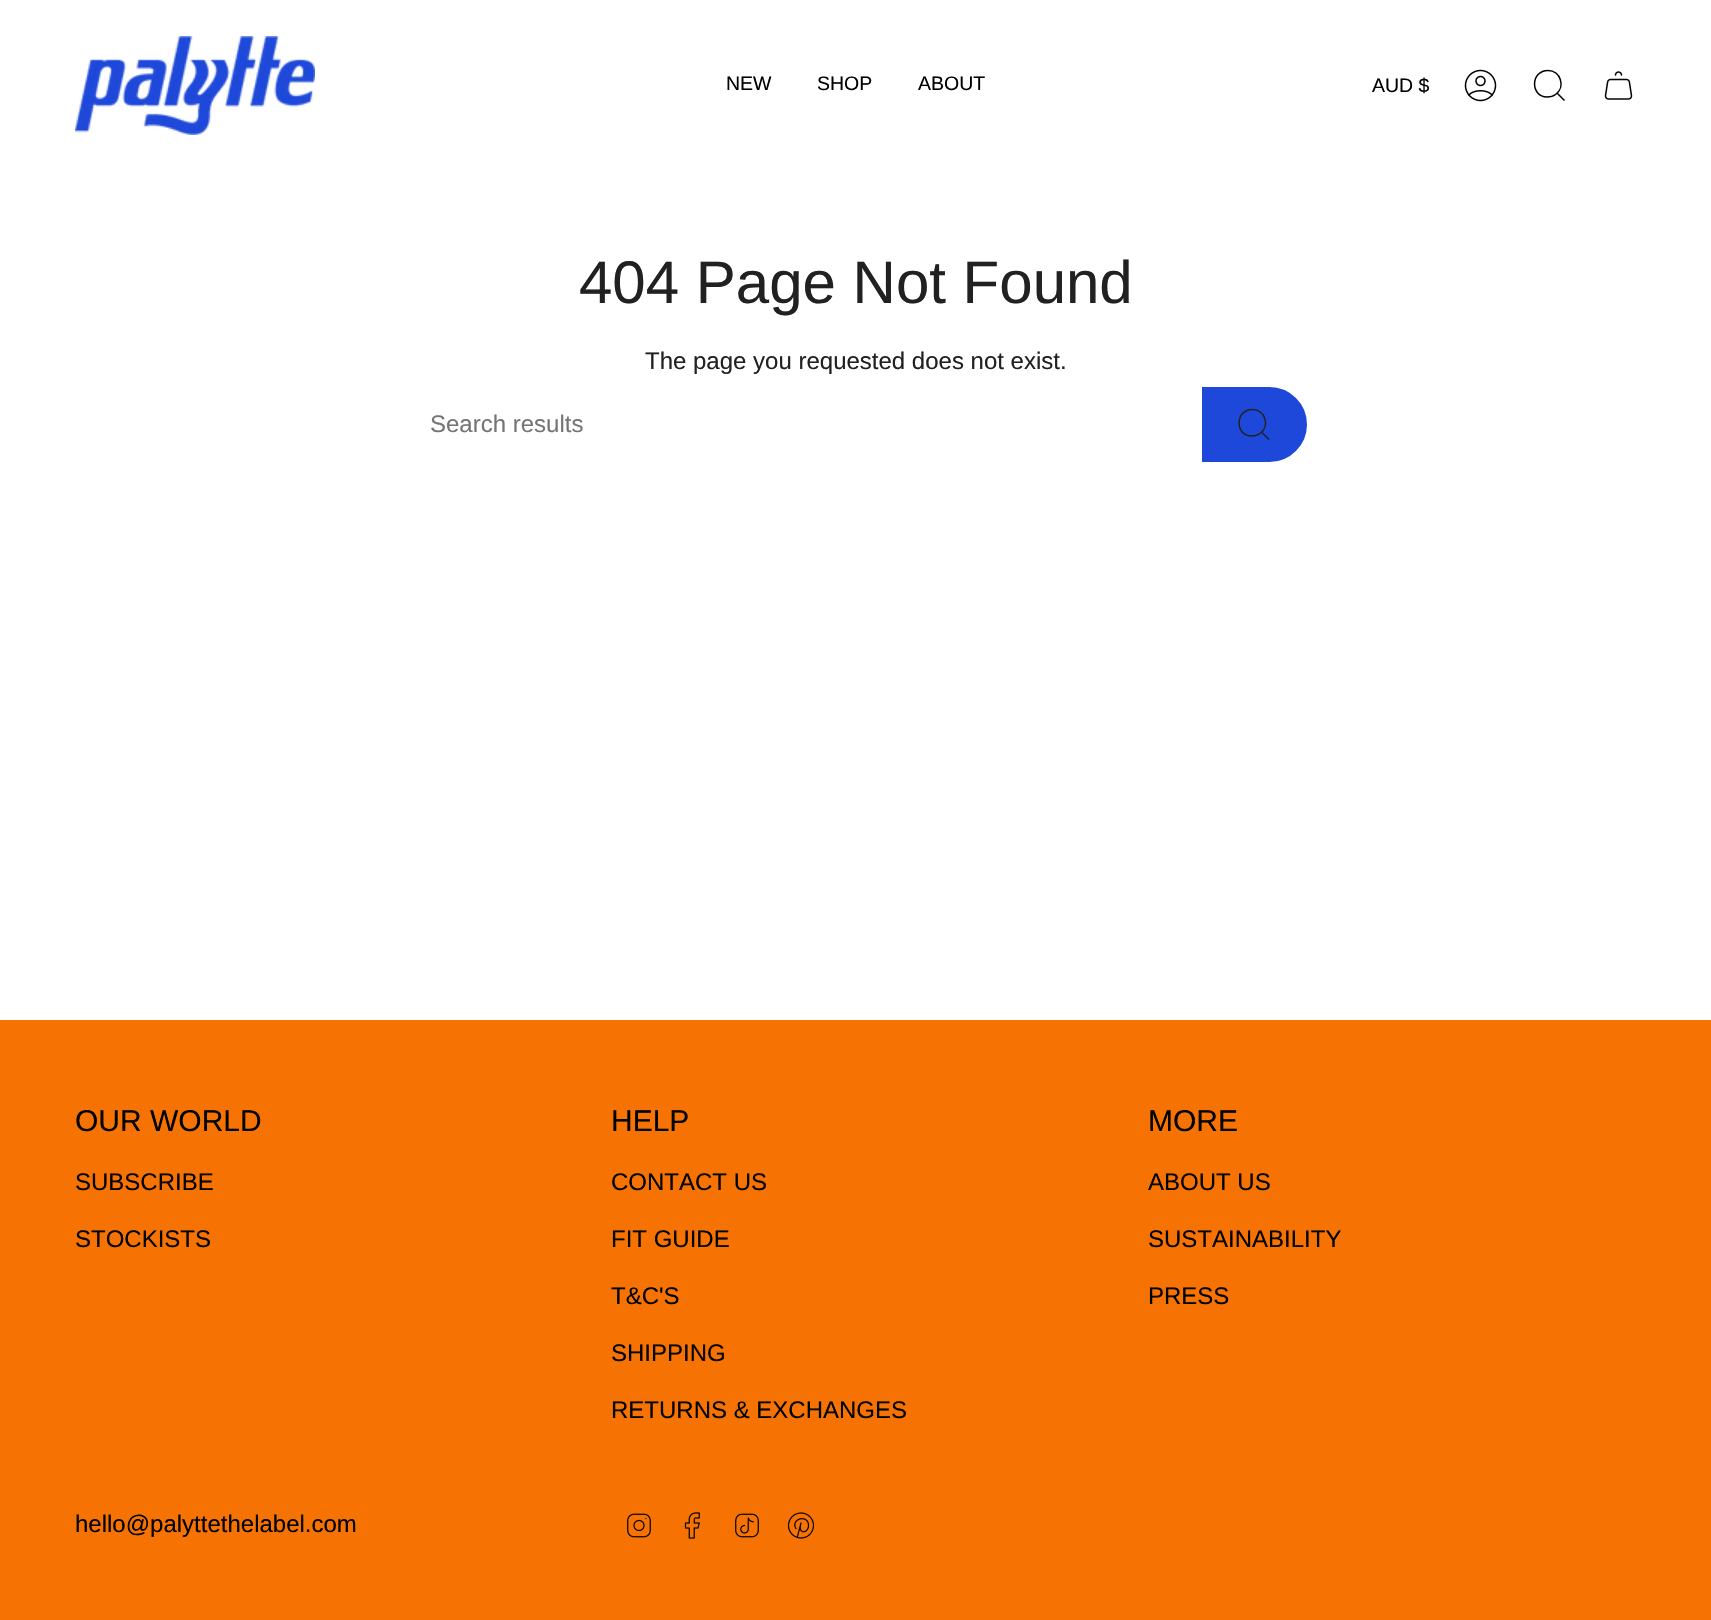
void draw(SkCanvas* canvas) {
	SkPaint fill;
	fill.setAntiAlias(true);
	auto makeFont = [&](const char* family, int weight, float size, bool italic = false) {
		SkFontStyle style(weight, SkFontStyle::kNormal_Width,
			italic ? SkFontStyle::kItalic_Slant : SkFontStyle::kUpright_Slant);
		SkFont result(fontMgr->matchFamilyStyle(family, style), size);
		result.setSubpixel(true);
		return result;
	};
	auto text = [&](const char* s, float x, float y, const SkFont& font) {
		canvas->drawString(s, x, y, font, fill);
	};
	auto box = [&](float l, float t, float r, float b) {
		canvas->drawRect(SkRect::MakeLTRB(l, t, r, b), fill);
	};
	auto picture = [&](const char* path, float l, float t, float r, float b) {
		auto image = SkImages::DeferredFromEncodedData(SkData::MakeFromFileName(path));
		canvas->drawImageRect(image, SkRect::MakeLTRB(l, t, r, b), SkSamplingOptions());
	};
	canvas->clear(0xFFFFFFFF);
	picture("image0.png", 75, 36, 315, 135);
	picture("image1.png", 1464, 69, 1497, 102);
	fill.setStyle(SkPaint::kStroke_Style);
	fill.setStrokeWidth(1.5f);
	fill.setColor(0xFF000000);
	canvas->drawPath(SkPathBuilder().moveTo(1548, 70.5f).cubicTo(1560.5f, 70.5f, 1566, 87, 1555.5f, 94.5f).cubicTo(1553, 96.5f, 1550, 97, 1547, 97).cubicTo(1530, 96.5f, 1530.5f, 70.5f, 1548, 70.5f).close().moveTo(1557, 93).lineTo(1564.5f, 100.5f).detach(), fill);
	picture("image2.png", 1604, 71, 1633, 100);
	fill.setStyle(SkPaint::kFill_Style);
	fill.setColor(0xFF1E48D9);
	canvas->drawPath(SkPathBuilder().moveTo(1203, 388).lineTo(1269.5f, 388).cubicTo(1289.5f, 388, 1306, 404.5f, 1306, 424.5f).cubicTo(1306, 444.5f, 1289.5f, 461, 1269.5f, 461).lineTo(1203, 461).close().detach(), fill);
	fill.setStyle(SkPaint::kStroke_Style);
	fill.setStrokeWidth(2);
	canvas->drawPath(SkPathBuilder().moveTo(1203, 388).lineTo(1269.5f, 388).cubicTo(1289.5f, 388, 1306, 404.5f, 1306, 424.5f).cubicTo(1306, 444.5f, 1289.5f, 461, 1269.5f, 461).lineTo(1203, 461).close().detach(), fill);
	fill.setStrokeWidth(1.5f);
	fill.setColor(0xFF212121);
	canvas->drawPath(SkPathBuilder().moveTo(1252.5f, 409.5f).cubicTo(1265, 409.5f, 1270.5f, 426, 1260, 433.5f).cubicTo(1257.5f, 435.5f, 1254.5f, 436, 1251.5f, 436).cubicTo(1234.5f, 435.5f, 1235, 409.5f, 1252.5f, 409.5f).close().moveTo(1261.5f, 432).lineTo(1269, 439.5f).detach(), fill);
	fill.setStyle(SkPaint::kFill_Style);
	fill.setColor(0xFFF67202);
	box(0, 1020, 1711, 1620);
	picture("image3.png", 627, 1513, 651, 1538);
	picture("image4.png", 684, 1512, 700, 1539);
	picture("image5.png", 735, 1513, 759, 1538);
	picture("image6.png", 787, 1512, 815, 1539);
	auto font1 = makeFont("Liberation Sans", 400, 19.5f);
	fill.setColor(0xFF000000);
	text("NEW", 726, 90, font1);
	text("SHOP", 817, 90, font1);
	text("ABOUT", 918, 90, font1);
	text("AUD $", 1372, 92, font1);
	auto font2 = makeFont("Liberation Sans", 400, 60);
	fill.setColor(0xFF212121);
	text("404 Page Not Found", 579, 303, font2);
	auto font3 = makeFont("Liberation Sans", 400, 24);
	text("The page you requested does not exist.", 645, 369, font3);
	fill.setColor(0xFF757575);
	text("Search results", 430, 432, font3);
	auto font4 = makeFont("Liberation Sans", 400, 30);
	fill.setColor(0xFF000000);
	text("OUR WORLD", 75, 1131, font4);
	text("SUBSCRIBE", 75, 1190, font3);
	text("STOCKISTS", 75, 1247, font3);
	text("HELP", 611, 1131, font4);
	text("CONTACT US", 611, 1190, font3);
	text("FIT GUIDE", 611, 1247, font3);
	text("T&C'S", 611, 1304, font3);
	text("SHIPPING", 611, 1361, font3);
	text("RETURNS & EXCHANGES", 611, 1418, font3);
	text("MORE", 1148, 1131, font4);
	text("ABOUT US", 1148, 1190, font3);
	text("SUSTAINABILITY", 1148, 1247, font3);
	text("PRESS", 1148, 1304, font3);
	text("hello@palyttethelabel.com", 75, 1532, font3);
}
